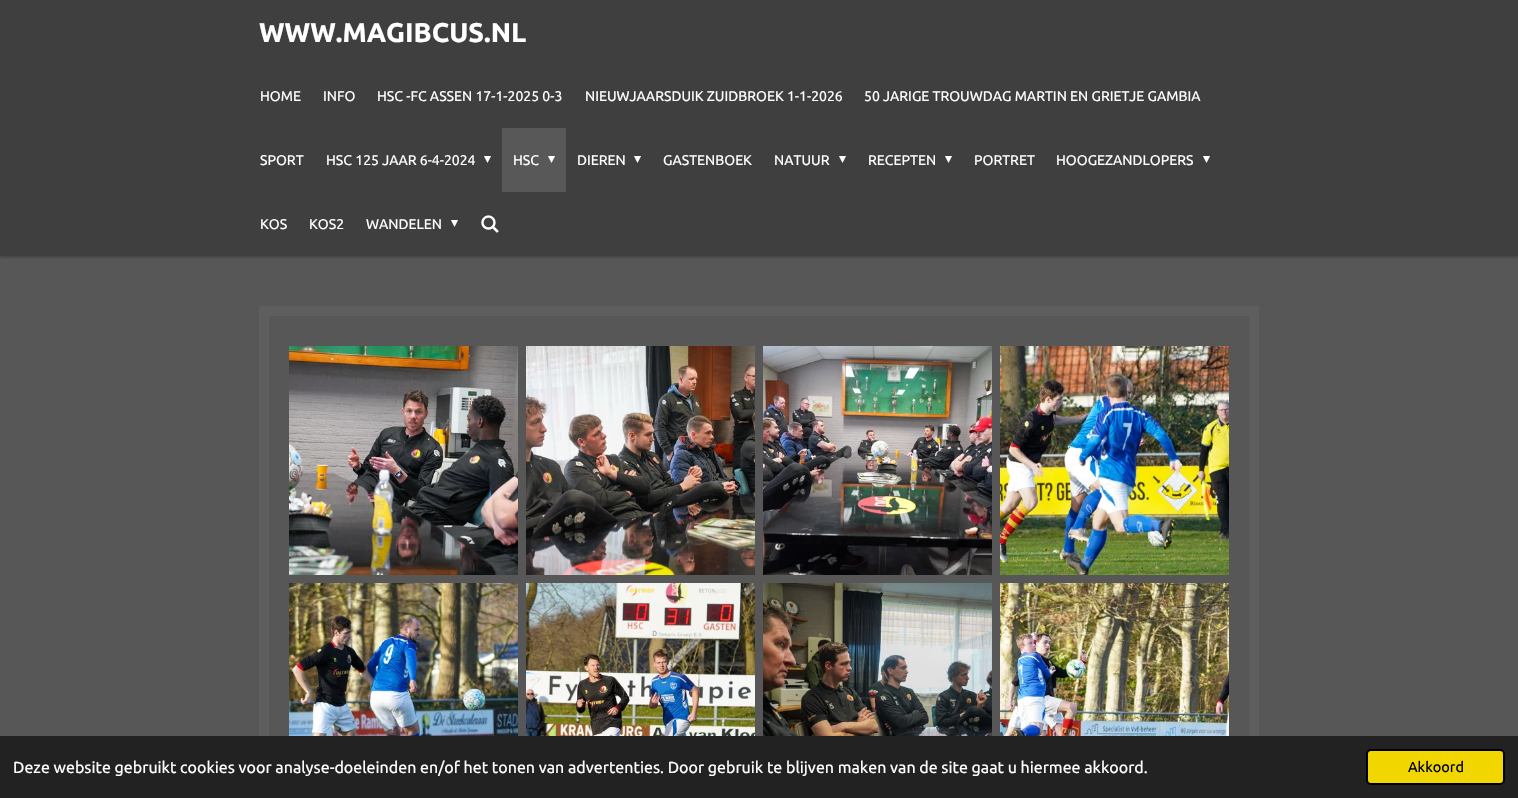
void draw(SkCanvas* canvas) {
	SkPaint fill;
	fill.setAntiAlias(true);
	auto makeFont = [&](const char* family, int weight, float size, bool italic = false) {
		SkFontStyle style(weight, SkFontStyle::kNormal_Width,
			italic ? SkFontStyle::kItalic_Slant : SkFontStyle::kUpright_Slant);
		SkFont result(fontMgr->matchFamilyStyle(family, style), size);
		result.setSubpixel(true);
		return result;
	};
	auto text = [&](const char* s, float x, float y, const SkFont& font) {
		canvas->drawString(s, x, y, font, fill);
	};
	auto box = [&](float l, float t, float r, float b) {
		canvas->drawRect(SkRect::MakeLTRB(l, t, r, b), fill);
	};
	auto picture = [&](const char* path, float l, float t, float r, float b) {
		auto image = SkImages::DeferredFromEncodedData(SkData::MakeFromFileName(path));
		canvas->drawImageRect(image, SkRect::MakeLTRB(l, t, r, b), SkSamplingOptions());
	};
	canvas->clear(0xFF575757);
	fill.setColor(0x4D000000);
	fill.setMaskFilter(SkMaskFilter::MakeBlur(kNormal_SkBlurStyle, 1.5f));
	canvas->drawRect(SkRect::MakeLTRB(0, 1, 1518, 257), fill);
	fill.setMaskFilter(nullptr);
	fill.setColor(0xFF3F3F3F);
	box(0, 0, 1518, 256);
	fill.setColor(0xFF585858);
	box(502, 128, 566, 192);
	picture("image0.png", 481, 215, 499, 233);
	fill.setColor(0xFF5E5E5E);
	box(259, 306, 1259, 736);
	fill.setColor(0xFF575757);
	box(269, 316, 1249, 736);
	picture("image1.png", 289, 346, 518, 575);
	picture("image2.png", 526, 346, 755, 575);
	picture("image3.png", 763, 346, 992, 575);
	picture("image4.png", 1000, 346, 1229, 575);
	picture("image5.png", 289, 583, 518, 736);
	picture("image6.png", 526, 583, 755, 736);
	picture("image7.png", 763, 583, 992, 736);
	picture("image8.png", 1000, 583, 1229, 736);
	fill.setColor(0xFF222222);
	box(0, 736, 1518, 798);
	fill.setColor(0xFFF1D600);
	canvas->drawRoundRect(SkRect::MakeLTRB(1367, 750, 1504, 784), 4, 4, fill);
	fill.setStyle(SkPaint::kStroke_Style);
	fill.setStrokeWidth(2);
	fill.setColor(0xFF000000);
	canvas->drawRoundRect(SkRect::MakeLTRB(1367, 750, 1504, 784), 4, 4, fill);
	auto font1 = makeFont("Ubuntu", 700, 27);
	fill.setStyle(SkPaint::kFill_Style);
	fill.setColor(0xFFFFFFFF);
	text("WWW.MAGIBCUS.NL", 259, 42, font1);
	auto font2 = makeFont("Ubuntu", 400, 14);
	text("HOME", 260, 101, font2);
	text("INFO", 323, 101, font2);
	text("HSC -FC ASSEN 17-1-2025 0-3", 377, 101, font2);
	text("NIEUWJAARSDUIK ZUIDBROEK 1-1-2026", 585, 101, font2);
	text("50 JARIGE TROUWDAG MARTIN EN GRIETJE GAMBIA", 864, 101, font2);
	text("SPORT", 260, 165, font2);
	text("HSC 125 JAAR 6-4-2024", 326, 165, font2);
	auto font3 = makeFont("DejaVu Sans", 400, 14);
	text("▾", 484, 163, font3);
	text("HSC", 513, 165, font2);
	text("▾", 548, 163, font3);
	text("DIEREN", 577, 165, font2);
	text("▾", 634, 163, font3);
	text("GASTENBOEK", 663, 165, font2);
	text("NATUUR", 774, 165, font2);
	text("▾", 839, 163, font3);
	text("RECEPTEN", 868, 165, font2);
	text("▾", 945, 163, font3);
	text("PORTRET", 974, 165, font2);
	text("HOOGEZANDLOPERS", 1056, 165, font2);
	text("▾", 1203, 163, font3);
	text("KOS", 260, 229, font2);
	text("KOS2", 309, 229, font2);
	text("WANDELEN", 366, 229, font2);
	text("▾", 451, 227, font3);
	auto font4 = makeFont("Ubuntu", 400, 16);
	text("Deze website gebruikt cookies voor analyse-doeleinden en/of het tonen van advertenties. Door gebruik te blijven maken van de site gaat u hiermee akkoord.", 13, 773, font4);
	auto font5 = makeFont("Ubuntu", 400, 14.5f);
	fill.setColor(0xFF000000);
	text("Akkoord", 1408, 772, font5);
}
